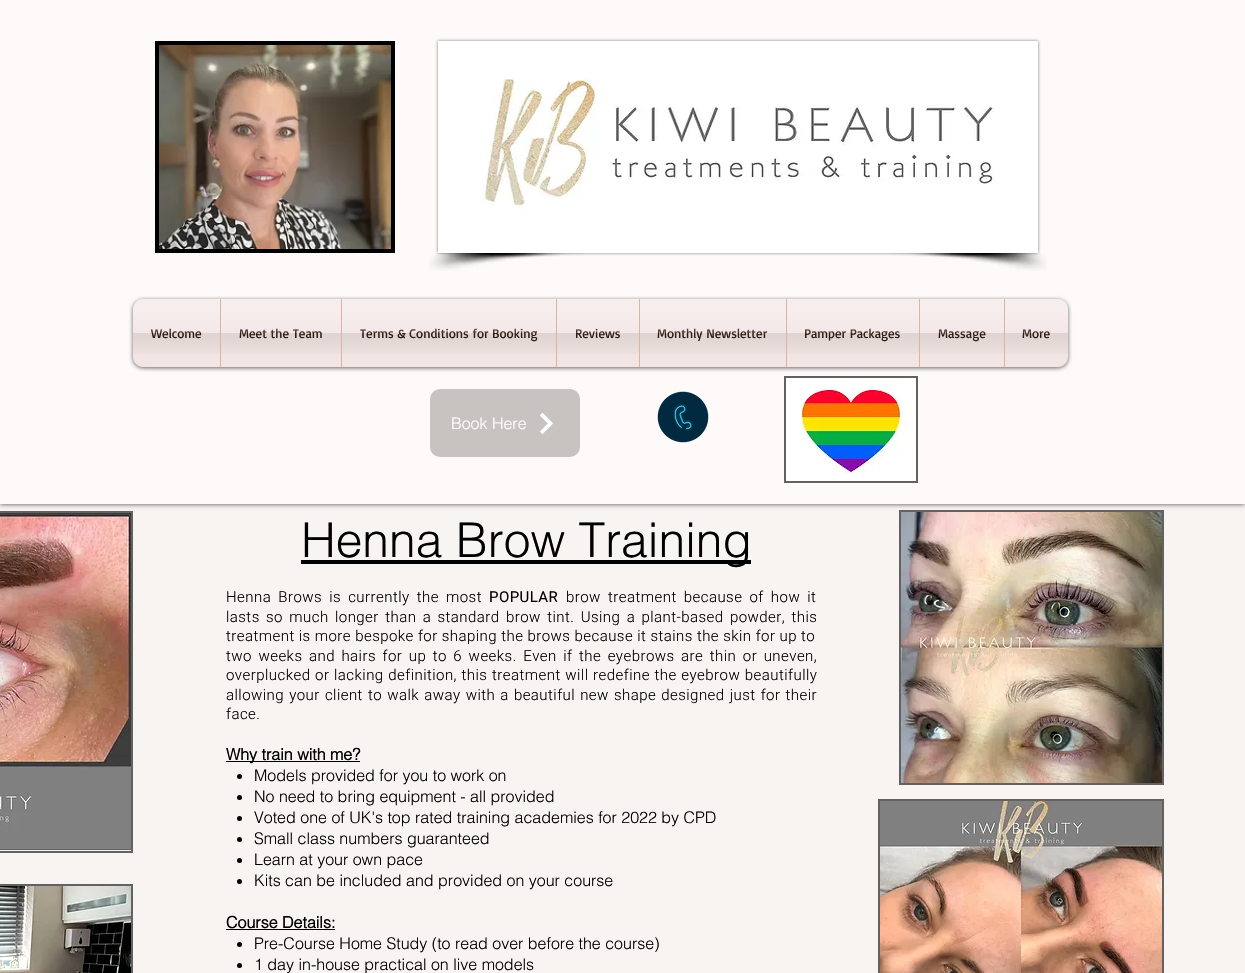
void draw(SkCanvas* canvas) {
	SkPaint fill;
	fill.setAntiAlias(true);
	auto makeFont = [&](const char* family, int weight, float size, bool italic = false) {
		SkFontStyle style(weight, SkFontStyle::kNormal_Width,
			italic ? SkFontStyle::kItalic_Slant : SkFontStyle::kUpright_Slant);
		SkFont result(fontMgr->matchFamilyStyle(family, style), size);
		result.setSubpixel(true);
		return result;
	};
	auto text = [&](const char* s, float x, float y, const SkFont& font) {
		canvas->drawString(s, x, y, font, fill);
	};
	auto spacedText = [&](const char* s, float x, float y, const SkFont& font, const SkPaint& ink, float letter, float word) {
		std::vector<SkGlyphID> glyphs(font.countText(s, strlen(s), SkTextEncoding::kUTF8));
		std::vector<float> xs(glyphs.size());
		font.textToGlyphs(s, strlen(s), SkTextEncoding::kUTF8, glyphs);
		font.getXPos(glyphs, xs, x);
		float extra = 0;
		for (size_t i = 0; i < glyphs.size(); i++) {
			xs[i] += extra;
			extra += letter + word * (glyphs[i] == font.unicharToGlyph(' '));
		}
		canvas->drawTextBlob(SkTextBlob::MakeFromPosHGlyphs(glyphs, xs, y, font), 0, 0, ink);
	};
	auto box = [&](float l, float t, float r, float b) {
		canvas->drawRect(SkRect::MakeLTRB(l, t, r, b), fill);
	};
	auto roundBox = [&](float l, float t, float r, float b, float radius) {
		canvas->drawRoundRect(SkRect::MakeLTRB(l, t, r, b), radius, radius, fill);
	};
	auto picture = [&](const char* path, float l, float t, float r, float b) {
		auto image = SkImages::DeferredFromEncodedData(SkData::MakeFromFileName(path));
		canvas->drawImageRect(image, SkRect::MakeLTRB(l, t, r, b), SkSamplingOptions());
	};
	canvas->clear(0xFFF8F4F1);
	fill.setColor(0xB3000000);
	fill.setMaskFilter(SkMaskFilter::MakeBlur(kNormal_SkBlurStyle, 2.5f));
	canvas->drawRect(SkRect::MakeLTRB(0, 0, 1245, 504), fill);
	fill.setMaskFilter(nullptr);
	fill.setColor(0xFFFDFAF9);
	box(0, 0, 1245, 504);
	fill.setColor(0xFF000000);
	box(155, 41, 395, 253);
	picture("image0.png", 159, 45, 391, 249);
	fill.setColor(0x80000000);
	fill.setMaskFilter(SkMaskFilter::MakeBlur(kNormal_SkBlurStyle, 1.5f));
	canvas->drawRect(SkRect::MakeLTRB(438, 41, 1038, 253), fill);
	fill.setMaskFilter(nullptr);
	picture("image1.png", 438, 41, 1038, 253);
	picture("image2.png", 429, 253, 583, 271);
	picture("image3.png", 893, 253, 1047, 271);
	fill.setColor(0x99000000);
	fill.setMaskFilter(SkMaskFilter::MakeBlur(kNormal_SkBlurStyle, 2));
	canvas->drawRoundRect(SkRect::MakeLTRB(133, 300, 1068, 368), 10, 10, fill);
	fill.setMaskFilter(nullptr);
	picture("image4.png", 133, 299, 1068, 309);
	fill.setColor(0xFFF2E5E4);
	canvas->drawPath(SkPathBuilder().moveTo(143, 299).lineTo(220, 299).lineTo(220, 367).lineTo(143, 367).cubicTo(137.5f, 367, 133, 362.5f, 133, 357).lineTo(133, 309).cubicTo(133, 303.5f, 137.5f, 299, 143, 299).close().detach(), fill);
	box(221, 299, 341, 367);
	fill.setColor(0xFFD8B5A8);
	box(220, 299, 221, 367);
	fill.setColor(0xFFF2E5E4);
	box(342, 299, 556, 367);
	fill.setColor(0xFFD8B5A8);
	box(341, 299, 342, 367);
	fill.setColor(0xFFF2E5E4);
	box(557, 299, 639, 367);
	fill.setColor(0xFFD8B5A8);
	box(556, 299, 557, 367);
	fill.setColor(0xFFF2E5E4);
	box(640, 299, 786, 367);
	fill.setColor(0xFFD8B5A8);
	box(639, 299, 640, 367);
	fill.setColor(0xFFF2E5E4);
	box(787, 299, 919, 367);
	fill.setColor(0xFFD8B5A8);
	box(786, 299, 787, 367);
	fill.setColor(0xFFF2E5E4);
	box(920, 299, 1004, 367);
	fill.setColor(0xFFD8B5A8);
	box(919, 299, 920, 367);
	fill.setColor(0xFFF2E5E4);
	canvas->drawPath(SkPathBuilder().moveTo(1004, 299).lineTo(1058, 299).cubicTo(1063.5f, 299, 1068, 303.5f, 1068, 309).lineTo(1068, 357).cubicTo(1068, 362.5f, 1063.5f, 367, 1058, 367).lineTo(1004, 367).close().detach(), fill);
	fill.setColor(0xFFD8B5A8);
	box(1004, 299, 1005, 367);
	fill.setColor(0xFFC6C3C1);
	roundBox(430, 389, 580, 457, 10);
	picture("image13.png", 540, 413, 553, 434);
	picture("image14.png", 657, 391, 709, 443);
	fill.setColor(0xFF636260);
	box(784, 376, 918, 483);
	picture("image15.png", 786, 378, 916, 481);
	box(0, 511, 133, 853);
	picture("image16.png", 0, 513, 131, 851);
	box(0, 884, 133, 973);
	picture("image17.png", 0, 886, 131, 973);
	fill.setColor(0xFF000000);
	box(301, 560, 751, 564);
	fill.setColor(0xFF636260);
	box(899, 510, 1164, 785);
	picture("image18.png", 901, 512, 1162, 783);
	fill.setColor(0xFF000000);
	box(226, 761, 360, 762);
	canvas->drawCircle(239.5f, 776.5f, 2.5f, fill);
	canvas->drawCircle(239.5f, 797.5f, 2.5f, fill);
	canvas->drawCircle(239.5f, 818.5f, 2.5f, fill);
	canvas->drawCircle(239.5f, 839.5f, 2.5f, fill);
	canvas->drawCircle(239.5f, 860.5f, 2.5f, fill);
	canvas->drawCircle(239.5f, 881.5f, 2.5f, fill);
	box(226, 929, 335, 930);
	canvas->drawCircle(239.5f, 944.5f, 2.5f, fill);
	canvas->drawCircle(239.5f, 965.5f, 2.5f, fill);
	fill.setColor(0xFF636260);
	box(878, 799, 1164, 973);
	picture("image19.png", 880, 801, 1162, 973);
	auto font1 = makeFont("Basic", 400, 13);
	fill.setColor(0xFF301D10);
	text("Welcome", 151, 338, font1);
	picture("image5.png", 133, 299, 220, 354);
	text("Meet the Team", 239, 338, font1);
	picture("image6.png", 221, 299, 341, 354);
	text("Terms & Conditions for Booking", 360, 338, font1);
	picture("image7.png", 342, 299, 556, 354);
	text("Reviews", 575, 338, font1);
	picture("image8.png", 557, 299, 639, 354);
	text("Monthly Newsletter", 657, 338, font1);
	picture("image9.png", 640, 299, 786, 354);
	text("Pamper Packages", 804, 338, font1);
	picture("image10.png", 787, 299, 919, 354);
	text("Massage", 938, 338, font1);
	picture("image11.png", 920, 299, 1004, 354);
	text("More", 1022, 338, font1);
	picture("image12.png", 1005, 299, 1068, 354);
	auto font2 = makeFont("helvetica", 300, 16);
	fill.setColor(0xFFFFFFFF);
	text("Book Here", 451, 429, font2);
	auto font3 = makeFont("helvetica", 300, 48);
	fill.setColor(0xFF000000);
	text("Henna Brow Training", 301, 557, font3);
	auto font4 = makeFont("Heebo", 300, 15);
	spacedText("Henna Brows is currently the most", 226, 602, font4, fill, 0.45f, 3);
	auto font5 = makeFont("Heebo", 400, 15);
	spacedText("POPULAR", 489, 602, font5, fill, 0.45f, 0);
	spacedText("brow treatment because of how it", 566, 602, font4, fill, 0.45f, 3);
	spacedText("lasts so much longer than a standard brow tint. Using a plant-based powder, this", 226, 622, font4, fill, 0.45f, 2.25f);
	spacedText("treatment is more bespoke for shaping the brows because it stains the skin for up to", 226, 641, font4, fill, 0.45f, 0);
	spacedText("two weeks and hairs for up to 6 weeks. Even if the eyebrows are thin or uneven,", 226, 661, font4, fill, 0.45f, 2.4f);
	spacedText("overplucked or lacking definition, this treatment will redefine the eyebrow beautifully", 226, 680, font4, fill, 0.45f, 0.5f);
	spacedText("allowing your client to walk away with a beautiful new shape designed just for their", 226, 700, font4, fill, 0.45f, 1);
	spacedText("face.", 226, 719, font4, fill, 0.45f, 0);
	auto font6 = makeFont("helvetica", 700, 16);
	text("Why train with me?", 226, 760, font6);
	text("Models provided for you to work on", 254, 781, font2);
	text("No need to bring equipment - all provided", 254, 802, font2);
	text("Voted one of UK's top rated training academies for 2022 by CPD", 254, 823, font2);
	text("Small class numbers guaranteed", 254, 844, font2);
	text("Learn at your own pace", 254, 865, font2);
	text("Kits can be included and provided on your course", 254, 886, font2);
	text("Course Details:", 226, 928, font6);
	text("Pre-Course Home Study (to read over before the course)", 254, 949, font2);
	text("1 day in-house practical on live models", 254, 970, font2);
}
